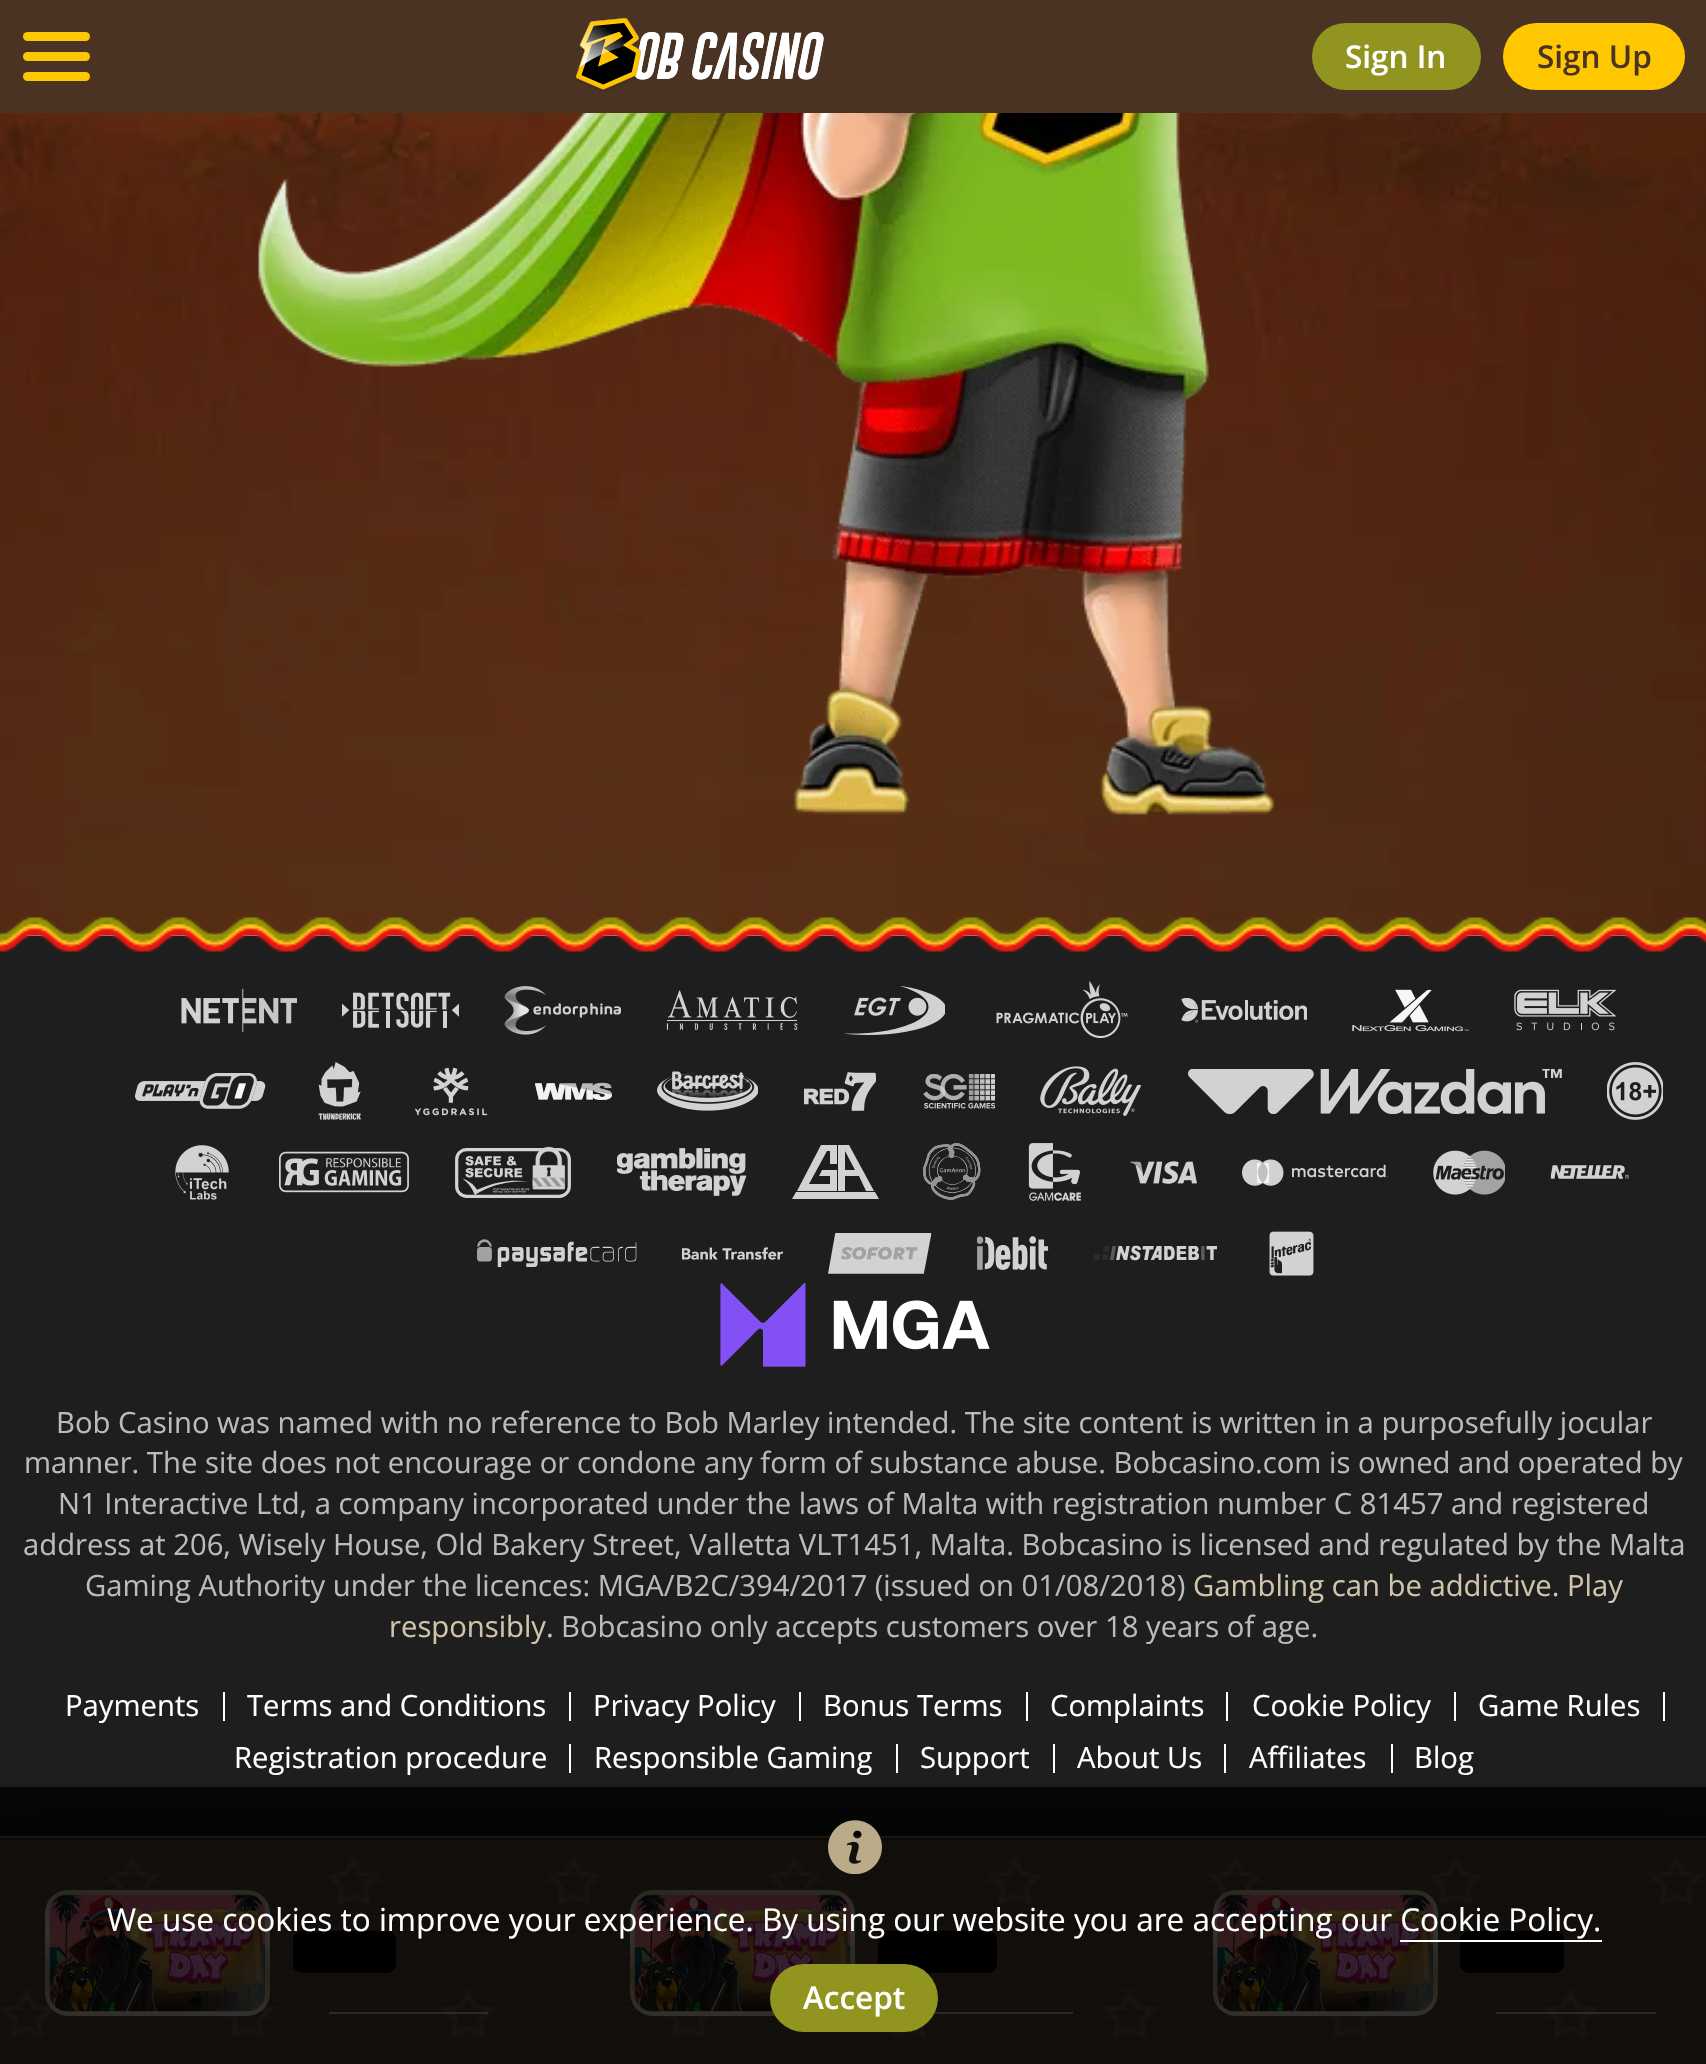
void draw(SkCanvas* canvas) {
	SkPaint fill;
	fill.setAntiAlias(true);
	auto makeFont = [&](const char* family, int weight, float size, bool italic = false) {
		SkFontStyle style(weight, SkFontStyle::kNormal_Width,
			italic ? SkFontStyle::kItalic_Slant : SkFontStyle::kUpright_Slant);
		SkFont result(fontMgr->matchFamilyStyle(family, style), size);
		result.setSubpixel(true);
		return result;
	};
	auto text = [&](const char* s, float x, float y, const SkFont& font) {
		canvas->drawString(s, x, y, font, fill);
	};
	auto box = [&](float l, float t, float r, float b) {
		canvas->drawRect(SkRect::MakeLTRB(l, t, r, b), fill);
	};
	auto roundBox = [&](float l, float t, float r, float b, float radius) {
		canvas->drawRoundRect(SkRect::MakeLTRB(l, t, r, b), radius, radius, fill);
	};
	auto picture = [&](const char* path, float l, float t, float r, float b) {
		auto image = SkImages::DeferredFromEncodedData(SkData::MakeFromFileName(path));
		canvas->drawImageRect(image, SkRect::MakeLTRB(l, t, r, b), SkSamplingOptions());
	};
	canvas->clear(0xFFFFFFFF);
	picture("image0.png", 0, 935, 1702, 936);
	fill.setColor(0xFF4A3323);
	box(0, 0, 1706, 113);
	fill.setColor(0xFFFFC700);
	roundBox(23, 32, 90, 41, 4.5f);
	roundBox(23, 52, 90, 61, 4.5f);
	roundBox(23, 72, 90, 81, 4.5f);
	picture("image1.png", 576, 18, 824, 92);
	fill.setColor(0xFF91941E);
	roundBox(1312, 23, 1481, 90, 33.5f);
	fill.setColor(0xFFFFC700);
	roundBox(1503, 23, 1685, 90, 33.5f);
	picture("image2.png", 0, 113, 1706, 936);
	picture("image3.png", 258, 113, 1275, 815);
	fill.setColor(0xFF1E1E1E);
	box(0, 936, 1706, 2064);
	picture("image4.png", 0, 917, 1706, 954);
	picture("image5.png", 181, 989, 297, 1032);
	picture("image6.png", 342, 992, 459, 1028);
	picture("image7.png", 504, 986, 621, 1035);
	picture("image8.png", 666, 990, 798, 1030);
	picture("image9.png", 844, 986, 945, 1035);
	picture("image10.png", 996, 981, 1128, 1038);
	picture("image11.png", 1181, 998, 1307, 1023);
	picture("image12.png", 1352, 989, 1469, 1032);
	picture("image13.png", 1514, 989, 1617, 1031);
	picture("image14.png", 135, 1073, 266, 1109);
	picture("image15.png", 318, 1062, 361, 1120);
	picture("image16.png", 414, 1067, 488, 1116);
	picture("image17.png", 535, 1082, 612, 1100);
	picture("image18.png", 657, 1071, 758, 1111);
	picture("image19.png", 804, 1072, 876, 1111);
	picture("image20.png", 923, 1074, 995, 1109);
	picture("image21.png", 1040, 1066, 1142, 1116);
	picture("image22.png", 1188, 1069, 1562, 1114);
	picture("image23.png", 1607, 1062, 1663, 1120);
	picture("image24.png", 175, 1145, 229, 1200);
	picture("image25.png", 279, 1151, 409, 1193);
	picture("image26.png", 455, 1146, 571, 1198);
	picture("image27.png", 617, 1148, 747, 1196);
	fill.setColor(0xFFD2D2D2);
	canvas->drawPath(SkPathBuilder(SkPathFillType::kEvenOdd).moveTo(859, 1176).lineTo(845, 1176).lineTo(845, 1191).lineTo(838, 1191).lineTo(838, 1145).lineTo(849, 1145).lineTo(874, 1191).lineTo(866, 1191).close().moveTo(845, 1170).lineTo(855, 1170).lineTo(845, 1151).close().moveTo(792, 1199).lineTo(879, 1199).lineTo(875, 1192).lineTo(796, 1192).close().moveTo(830, 1184).lineTo(830, 1176).lineTo(819, 1176).lineTo(822, 1170).lineTo(837, 1170).lineTo(837, 1191).lineTo(797, 1191).lineTo(821, 1145).lineTo(837, 1145).lineTo(837, 1164).lineTo(830, 1164).lineTo(830, 1151).lineTo(827, 1151).lineTo(809, 1184).close().detach(), fill);
	picture("image28.png", 923, 1143, 981, 1200);
	picture("image29.png", 1028, 1143, 1081, 1201);
	picture("image30.png", 1130, 1161, 1197, 1184);
	picture("image31.png", 1242, 1159, 1388, 1186);
	picture("image32.png", 1433, 1150, 1505, 1195);
	picture("image33.png", 1550, 1165, 1629, 1179);
	picture("image34.png", 477, 1239, 637, 1267);
	picture("image35.png", 682, 1247, 783, 1260);
	picture("image36.png", 828, 1233, 932, 1274);
	picture("image37.png", 977, 1236, 1049, 1270);
	picture("image38.png", 1094, 1245, 1217, 1261);
	picture("image39.png", 1269, 1231, 1314, 1276);
	picture("image40.png", 720, 1283, 990, 1367);
	fill.setColor(0xFFFFFFFF);
	box(223, 1692, 225, 1721);
	box(569, 1692, 571, 1721);
	box(799, 1692, 801, 1721);
	box(1026, 1692, 1028, 1721);
	box(1226, 1692, 1228, 1721);
	box(1454, 1692, 1456, 1721);
	box(1663, 1692, 1665, 1721);
	box(569, 1744, 571, 1773);
	box(896, 1744, 898, 1773);
	box(1053, 1744, 1055, 1773);
	box(1224, 1744, 1226, 1773);
	box(1391, 1744, 1393, 1773);
	canvas->save();
	canvas->clipRect(SkRect::MakeLTRB(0, 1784, 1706, 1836));
	fill.setColor(0xB3000000);
	fill.setMaskFilter(SkMaskFilter::MakeBlur(kNormal_SkBlurStyle, 22.5f));
	canvas->drawRect(SkRect::MakeLTRB(-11, 1827, 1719, 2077), fill);
	fill.setMaskFilter(nullptr);
	canvas->restore();
	picture("image41.png", 0, 1840, 1706, 2064);
	fill.setColor(0xFF38261A);
	box(0, 1838, 1706, 1840);
	fill.setStyle(SkPaint::kStroke_Style);
	fill.setStrokeWidth(2);
	fill.setColor(0xFF806553);
	canvas->drawRect(SkRect::MakeLTRB(-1, 1837, 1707, 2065), fill);
	fill.setStyle(SkPaint::kFill_Style);
	{
		const SkColor colors[] = {0xFFD4C5A7, 0xFFFFFFFF, 0xFFCDAF7B, 0xFFFFEFD6};
		const float stops[] = {0, 0.32f, 0.68f, 1};
		const SkPoint ends[] = {{158, 1890}, {158, 2016}};
		fill.setShader(SkGradientShader::MakeLinear(ends, colors, stops, 4, SkTileMode::kClamp));
		fill.setAlpha(255);
	}
	roundBox(45, 1890, 270, 2016, 23);
	picture("image42.png", 49, 1894, 266, 2012);
	{
		const SkColor colors[] = {0x00FFFFFF, 0x00FFFFFF, 0xFFFFFFFF, 0x00FFFFFF, 0x00FFFFFF};
		const float stops[] = {0, 0.33f, 0.5f, 0.66f, 1};
		const SkPoint ends[] = {{182, 1762}, {565, 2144}};
		fill.setShader(SkGradientShader::MakeLinear(ends, colors, stops, 5, SkTileMode::kClamp));
		fill.setAlpha(255);
	}
	roundBox(50, 1895, 266, 2012, 18);
	fill.setShader(nullptr);
	fill.setColor(0xFF000000);
	roundBox(293, 1931, 396, 1973, 9);
	fill.setColor(0xFFF1C4A8);
	box(329, 2012, 488, 2014);
	{
		const SkColor colors[] = {0xFFD4C5A7, 0xFFFFFFFF, 0xFFCDAF7B, 0xFFFFEFD6};
		const float stops[] = {0, 0.32f, 0.68f, 1};
		const SkPoint ends[] = {{743, 1890}, {743, 2016}};
		fill.setShader(SkGradientShader::MakeLinear(ends, colors, stops, 4, SkTileMode::kClamp));
		fill.setAlpha(255);
	}
	roundBox(630, 1890, 855, 2016, 23);
	picture("image43.png", 634, 1894, 851, 2012);
	{
		const SkColor colors[] = {0x00FFFFFF, 0x00FFFFFF, 0xFFFFFFFF, 0x00FFFFFF, 0x00FFFFFF};
		const float stops[] = {0, 0.33f, 0.5f, 0.66f, 1};
		const SkPoint ends[] = {{767, 1762}, {1150, 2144}};
		fill.setShader(SkGradientShader::MakeLinear(ends, colors, stops, 5, SkTileMode::kClamp));
		fill.setAlpha(255);
	}
	box(821, 1935, 851, 1964);
	fill.setShader(nullptr);
	fill.setColor(0xFF000000);
	roundBox(878, 1931, 997, 1973, 9);
	fill.setColor(0xFFF1C4A8);
	box(934, 2012, 1073, 2014);
	{
		const SkColor colors[] = {0xFFD4C5A7, 0xFFFFFFFF, 0xFFCDAF7B, 0xFFFFEFD6};
		const float stops[] = {0, 0.32f, 0.68f, 1};
		const SkPoint ends[] = {{1325, 1890}, {1325, 2016}};
		fill.setShader(SkGradientShader::MakeLinear(ends, colors, stops, 4, SkTileMode::kClamp));
		fill.setAlpha(255);
	}
	roundBox(1213, 1890, 1438, 2016, 23);
	picture("image44.png", 1217, 1894, 1434, 2012);
	{
		const SkColor colors[] = {0x00FFFFFF, 0x00FFFFFF, 0xFFFFFFFF, 0x00FFFFFF, 0x00FFFFFF};
		const float stops[] = {0, 0.33f, 0.5f, 0.66f, 1};
		const SkPoint ends[] = {{1350, 1762}, {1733, 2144}};
		fill.setShader(SkGradientShader::MakeLinear(ends, colors, stops, 5, SkTileMode::kClamp));
		fill.setAlpha(255);
	}
	roundBox(1217, 1895, 1433, 2012, 18);
	fill.setShader(nullptr);
	fill.setColor(0xFF000000);
	roundBox(1460, 1931, 1564, 1973, 9);
	fill.setColor(0xFFF1C4A8);
	box(1496, 2012, 1656, 2014);
	fill.setColor(0xCC000000);
	box(0, 1787, 1706, 2064);
	picture("image45.png", 828, 1820, 882, 1874);
	fill.setColor(0xFFFFFFFF);
	box(1400, 1940, 1602, 1942);
	fill.setColor(0xFF91941E);
	roundBox(770, 1964, 938, 2032, 34);
	auto font1 = makeFont("Open Sans", 600, 31.5f);
	fill.setColor(0xFFFFFFFF);
	text("Sign In", 1345, 68, font1);
	fill.setColor(0xFF4A3323);
	text("Sign Up", 1537, 68, font1);
	auto font2 = makeFont("Open Sans", 400, 29.25f);
	fill.setColor(0xFFB8BCBF);
	text("Bob Casino was named with no reference to Bob Marley intended. The site content is written in a purposefully jocular", 56, 1433, font2);
	text("manner. The site does not encourage or condone any form of substance abuse. Bobcasino.com is owned and operated by", 24, 1473, font2);
	text("N1 Interactive Ltd, a company incorporated under the laws of Malta with registration number C 81457 and registered", 58, 1514, font2);
	text("address at 206, Wisely House, Old Bakery Street, Valletta VLT1451, Malta. Bobcasino is licensed and regulated by the Malta", 23, 1555, font2);
	text("Gaming Authority under the licences: MGA/B2C/394/2017 (issued on 01/08/2018)", 85, 1596, font2);
	fill.setColor(0xFFD0C4AA);
	text("Gambling can be addictive. Play", 1193, 1596, font2);
	text("responsibly.", 389, 1637, font2);
	fill.setColor(0xFFB8BCBF);
	text("Bobcasino only accepts customers over 18 years of age.", 561, 1637, font2);
	fill.setColor(0xFFFFFFFF);
	text("Payments", 65, 1716, font2);
	text("Terms and Conditions", 247, 1716, font2);
	text("Privacy Policy", 593, 1716, font2);
	text("Bonus Terms", 823, 1716, font2);
	text("Complaints", 1050, 1716, font2);
	text("Cookie Policy", 1252, 1716, font2);
	text("Game Rules", 1478, 1716, font2);
	text("Registration procedure", 234, 1768, font2);
	text("Responsible Gaming", 594, 1768, font2);
	text("Support", 920, 1768, font2);
	text("About Us", 1077, 1768, font2);
	text("Affiliates", 1249, 1768, font2);
	text("Blog", 1414, 1768, font2);
	auto font3 = makeFont("Open Sans", 400, 31.5f);
	text("We use cookies to improve your experience. By using our website you are accepting our Cookie Policy.", 107, 1931, font3);
	text("Accept", 803, 2009, font1);
}
